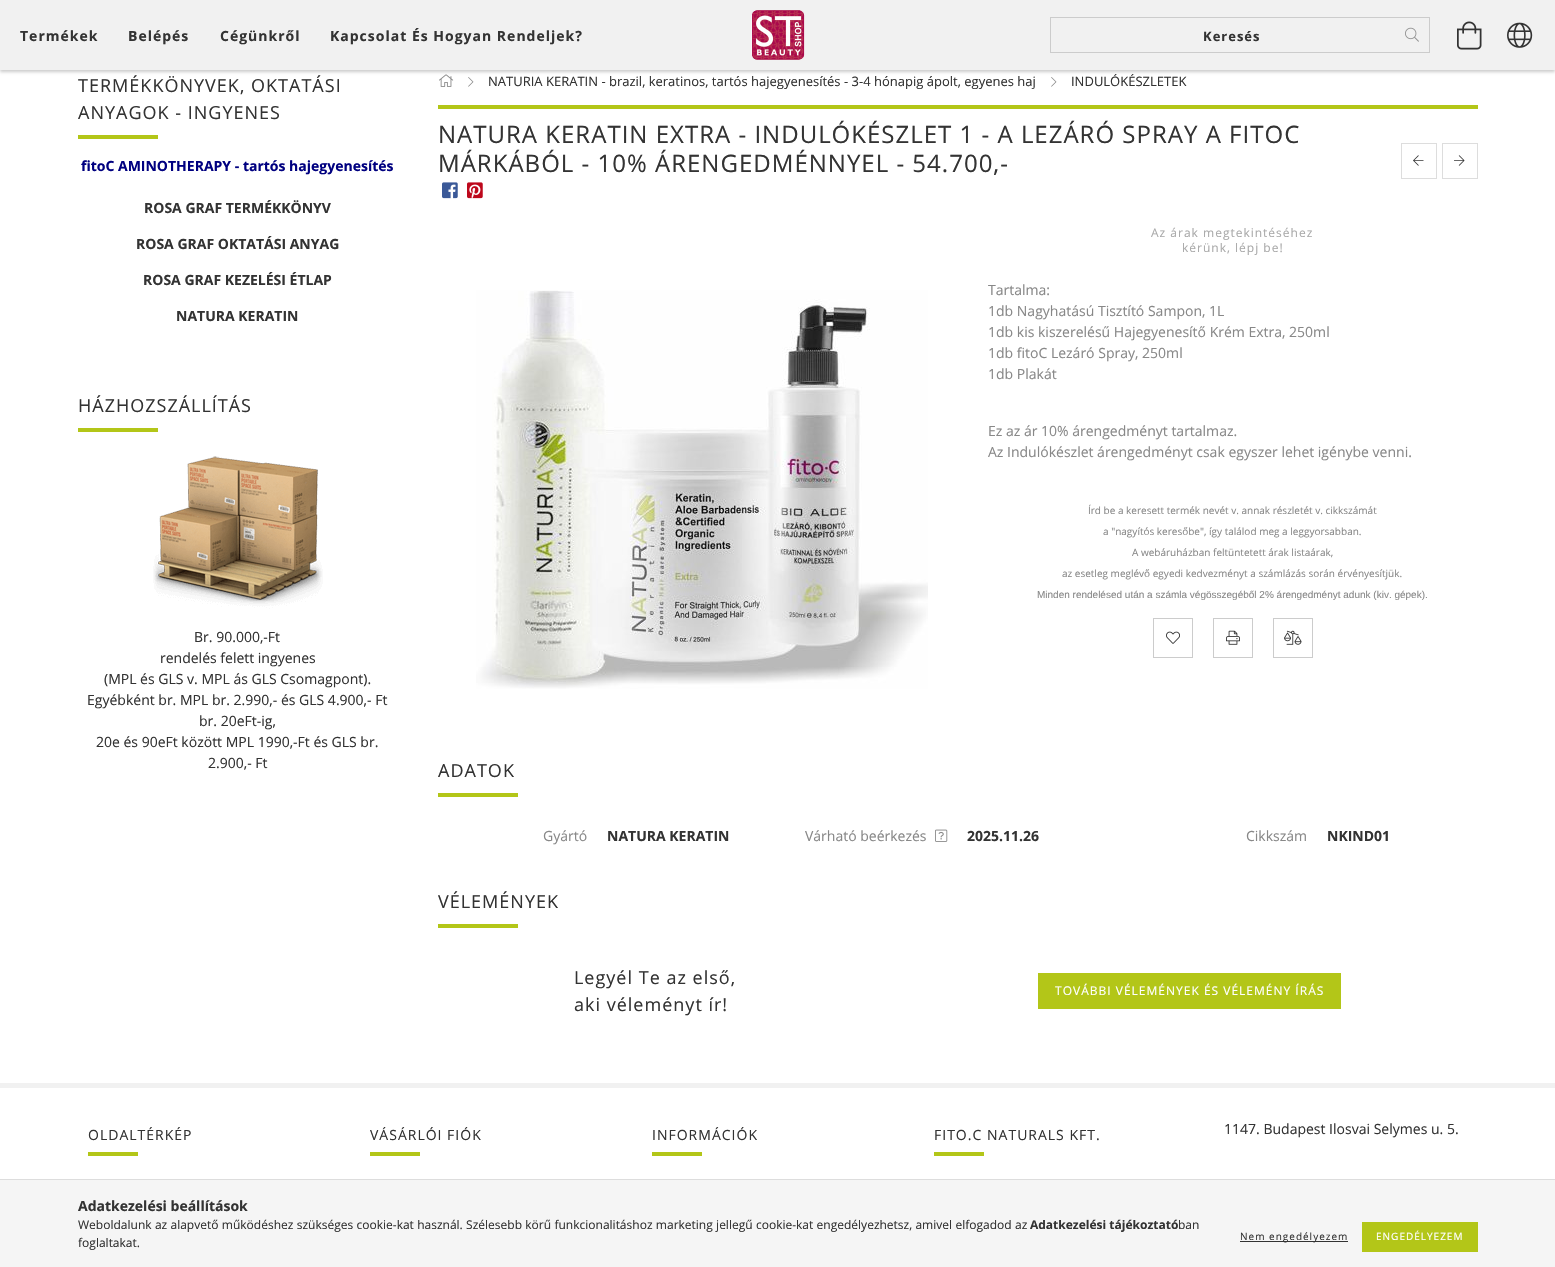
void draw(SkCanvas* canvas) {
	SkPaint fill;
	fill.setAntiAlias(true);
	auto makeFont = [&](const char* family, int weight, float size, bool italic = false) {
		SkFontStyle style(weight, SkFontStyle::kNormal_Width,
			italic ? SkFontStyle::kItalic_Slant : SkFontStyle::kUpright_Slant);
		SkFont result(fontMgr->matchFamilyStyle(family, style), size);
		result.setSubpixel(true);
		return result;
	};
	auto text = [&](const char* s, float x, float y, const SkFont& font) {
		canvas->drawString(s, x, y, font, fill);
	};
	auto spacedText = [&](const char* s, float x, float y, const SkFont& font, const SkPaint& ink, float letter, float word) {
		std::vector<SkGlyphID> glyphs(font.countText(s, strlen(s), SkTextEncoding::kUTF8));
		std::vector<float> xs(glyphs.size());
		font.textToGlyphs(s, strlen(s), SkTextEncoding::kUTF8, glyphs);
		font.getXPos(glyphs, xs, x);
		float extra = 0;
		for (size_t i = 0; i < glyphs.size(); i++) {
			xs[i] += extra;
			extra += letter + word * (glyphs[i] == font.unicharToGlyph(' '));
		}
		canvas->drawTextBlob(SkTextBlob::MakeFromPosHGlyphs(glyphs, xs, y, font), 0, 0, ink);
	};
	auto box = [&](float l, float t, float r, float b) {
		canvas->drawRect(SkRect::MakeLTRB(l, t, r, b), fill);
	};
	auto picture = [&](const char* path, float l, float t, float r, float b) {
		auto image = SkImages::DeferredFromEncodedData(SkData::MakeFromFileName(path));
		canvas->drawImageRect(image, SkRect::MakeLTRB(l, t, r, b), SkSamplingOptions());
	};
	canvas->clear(0xFFFFFFFF);
	picture("image5.png", 439, 74, 454, 87);
	picture("image6.png", 468, 77, 474, 87);
	picture("image6.png", 1051, 77, 1057, 87);
	fill.setColor(0x33000000);
	fill.setMaskFilter(SkMaskFilter::MakeBlur(kNormal_SkBlurStyle, 1.5f));
	canvas->drawRect(SkRect::MakeLTRB(0, 2, 1555, 72), fill);
	fill.setMaskFilter(nullptr);
	fill.setColor(0xFFF1F1F1);
	box(0, 0, 1555, 70);
	picture("image0.png", 751, 10, 805, 60);
	fill.setStyle(SkPaint::kStroke_Style);
	fill.setStrokeWidth(1);
	fill.setColor(0xFFCCCCCC);
	canvas->drawRect(SkRect::MakeLTRB(1050.5f, 17.5f, 1429.5f, 52.5f), fill);
	picture("image1.png", 1405, 27, 1419, 42);
	picture("image2.png", 1457, 21, 1482, 50);
	picture("image3.png", 1507, 22, 1533, 48);
	fill.setStyle(SkPaint::kFill_Style);
	fill.setColor(0xFFB3C618);
	box(78, 135, 158, 139);
	box(78, 428, 158, 432);
	picture("image4.png", 153, 456, 323, 609);
	box(438, 105, 1478, 109);
	picture("image7.png", 442, 182, 458, 199);
	picture("image8.png", 467, 182, 483, 199);
	fill.setStyle(SkPaint::kStroke_Style);
	fill.setColor(0xFFDDDDDD);
	canvas->drawRect(SkRect::MakeLTRB(1401.5f, 143.5f, 1436.5f, 178.5f), fill);
	picture("image9.png", 1413, 155, 1424, 166);
	canvas->drawRect(SkRect::MakeLTRB(1442.5f, 143.5f, 1477.5f, 178.5f), fill);
	picture("image10.png", 1454, 155, 1465, 166);
	picture("image11.png", 476, 290, 928, 689);
	fill.setColor(0xFFCCCCCC);
	canvas->drawRect(SkRect::MakeLTRB(1153.5f, 618.5f, 1192.5f, 657.5f), fill);
	picture("image12.png", 1166, 631, 1180, 644);
	canvas->drawRect(SkRect::MakeLTRB(1213.5f, 618.5f, 1252.5f, 657.5f), fill);
	picture("image13.png", 1226, 630, 1240, 645);
	canvas->drawRect(SkRect::MakeLTRB(1273.5f, 618.5f, 1312.5f, 657.5f), fill);
	picture("image14.png", 1284, 630, 1302, 645);
	fill.setStyle(SkPaint::kFill_Style);
	fill.setColor(0xFFB3C618);
	box(438, 793, 518, 797);
	picture("image15.png", 935, 829, 948, 842);
	box(438, 924, 518, 928);
	box(1038, 973, 1341, 1009);
	fill.setColor(0xFFF1F1F1);
	box(0, 1083, 1555, 1088);
	fill.setColor(0xFFB3C618);
	box(88, 1152, 138, 1156);
	box(370, 1152, 420, 1156);
	box(652, 1152, 702, 1156);
	box(934, 1152, 984, 1156);
	fill.setColor(0xFFF5F5F5);
	box(0, 1180, 1555, 1267);
	fill.setColor(0xFFDDDDDD);
	box(0, 1179, 1555, 1180);
	fill.setColor(0xFF333333);
	box(1240, 1241, 1348, 1242);
	fill.setColor(0xFFB3C618);
	box(1362, 1222, 1478, 1252);
	auto font1 = makeFont("Open Sans", 700, 14);
	fill.setColor(0xFF333333);
	spacedText("Termékek", 20, 41, font1, fill, 1, 0);
	spacedText("Belépés", 128, 41, font1, fill, 1, 0);
	spacedText("Cégünkről", 220, 41, font1, fill, 1, 0);
	spacedText("Kapcsolat És Hogyan Rendeljek?", 330, 41, font1, fill, 1, 0);
	auto font2 = makeFont("Open Sans", 700, 13);
	spacedText("Keresés", 1203, 41, font2, fill, 1, 0);
	auto font3 = makeFont("Open Sans", 400, 18);
	spacedText("TERMÉKKÖNYVEK, OKTATÁSI", 78, 92, font3, fill, 1, 0);
	spacedText("ANYAGOK - INGYENES", 78, 119, font3, fill, 1, 0);
	fill.setColor(0xFF000080);
	text("fitoC AMINOTHERAPY - tartós hajegyenesítés", 81, 171, font1);
	fill.setColor(0xFF333333);
	text("ROSA GRAF TERMÉKKÖNYV", 144, 213, font1);
	text("ROSA GRAF OKTATÁSI ANYAG", 136, 249, font1);
	text("ROSA GRAF KEZELÉSI ÉTLAP", 143, 285, font1);
	text("NATURA KERATIN", 176, 321, font1);
	spacedText("HÁZHOZSZÁLLÍTÁS", 78, 412, font3, fill, 1, 0);
	auto font4 = makeFont("Open Sans", 400, 14);
	text("Br. 90.000,-Ft", 194, 642, font4);
	text("rendelés felett ingyenes", 160, 663, font4);
	text("(MPL és GLS v. MPL ás GLS Csomagpont).", 104, 684, font4);
	text("Egyébként br. MPL br. 2.990,- és GLS 4.900,- Ft", 87, 705, font4);
	text("br. 20eFt-ig,", 199, 726, font4);
	text("20e és 90eFt között MPL 1990,-Ft és GLS br.", 96, 747, font4);
	text("2.900,- Ft", 208, 768, font4);
	auto font5 = makeFont("Open Sans", 400, 13);
	text("NATURIA KERATIN - brazil, keratinos, tartós hajegyenesítés - 3-4 hónapig ápolt, egyenes haj", 488, 86, font5);
	text("INDULÓKÉSZLETEK", 1071, 86, font5);
	auto font6 = makeFont("Open Sans", 400, 24);
	spacedText("NATURA KERATIN EXTRA - INDULÓKÉSZLET 1 - A LEZÁRÓ SPRAY A FITOC", 438, 143, font6, fill, 1, 0);
	spacedText("MÁRKÁBÓL - 10% ÁRENGEDMÉNNYEL - 54.700,-", 438, 172, font6, fill, 1, 0);
	auto font7 = makeFont("Open Sans", 400, 12);
	fill.setColor(0xFFAAAAAA);
	spacedText("Az árak megtekintéséhez", 1151, 237, font7, fill, 1, 0);
	spacedText("kérünk, lépj be!", 1182, 252, font7, fill, 1, 0);
	fill.setColor(0xFF888888);
	text("Tartalma:", 988, 295, font4);
	text("1db Nagyhatású Tisztító Sampon, 1L", 988, 316, font4);
	text("1db kis kiszerelésű Hajegyenesítő Krém Extra, 250ml", 988, 337, font4);
	text("1db fitoC Lezáró Spray, 250ml", 988, 358, font4);
	text("1db Plakát", 988, 379, font4);
	text("Ez az ár 10% árengedményt tartalmaz.", 988, 436, font4);
	text("Az Indulókészlet árengedményt csak egyszer lehet igénybe venni.", 988, 457, font4);
	auto font8 = makeFont("Open Sans", 400, 10);
	text("Írd be a keresett termék nevét v. annak részletét v. cikkszámát", 1088, 514, font8);
	text("a \"nagyítós keresőbe\", így találod meg a leggyorsabban.", 1103, 535, font8);
	text("A webáruházban feltüntetett árak listaárak,", 1132, 556, font8);
	text("az esetleg meglévő egyedi kedvezményt a számlázás során érvényesítjük.", 1062, 577, font8);
	auto font9 = makeFont("Liberation Sans", 400, 10);
	text("Minden rendelésed után a számla végösszegéből 2% árengedményt adunk (kiv. gépek).", 1037, 598, font9);
	fill.setColor(0xFF333333);
	spacedText("ADATOK", 438, 777, font3, fill, 1, 0);
	fill.setColor(0xFF888888);
	text("Gyártó", 543, 841, font4);
	fill.setColor(0xFF333333);
	text("NATURA KERATIN", 607, 841, font1);
	fill.setColor(0xFF888888);
	text("Várható beérkezés", 805, 841, font4);
	fill.setColor(0xFF333333);
	text("2025.11.26", 967, 841, font1);
	fill.setColor(0xFF888888);
	text("Cikkszám", 1246, 841, font4);
	fill.setColor(0xFF333333);
	text("NKIND01", 1327, 841, font1);
	spacedText("VÉLEMÉNYEK", 438, 908, font3, fill, 1, 0);
	spacedText("Legyél Te az első,", 574, 984, font3, fill, 1, 0);
	spacedText("aki véleményt ír!", 574, 1011, font3, fill, 1, 0);
	fill.setColor(0xFFFFFFFF);
	spacedText("TOVÁBBI VÉLEMÉNYEK ÉS VÉLEMÉNY ÍRÁS", 1055, 995, font7, fill, 1, 0);
	fill.setColor(0xFF333333);
	spacedText("OLDALTÉRKÉP", 88, 1140, font4, fill, 1, 0);
	spacedText("VÁSÁRLÓI FIÓK", 370, 1140, font4, fill, 1, 0);
	spacedText("INFORMÁCIÓK", 652, 1140, font4, fill, 1, 0);
	spacedText("FITO.C NATURALS KFT.", 934, 1140, font4, fill, 1, 0);
	text("1147. Budapest Ilosvai Selymes u. 5.", 1224, 1134, font4);
	text("Adatkezelési beállítások", 78, 1211, font1);
	spacedText("Weboldalunk az alapvető működéshez szükséges cookie-kat használ. Szélesebb körű funkcionalitáshoz marketing jellegű cookie-kat engedélyezhetsz, amivel elfogadod az", 78, 1229, font7, fill, 0, 0.2f);
	auto font10 = makeFont("Open Sans", 700, 12);
	text("Adatkezelési tájékoztató", 1030, 1229, font10);
	text("ban", 1178, 1229, font7);
	text("foglaltakat.", 78, 1247, font7);
	spacedText("Nem engedélyezem", 1240, 1240, font8, fill, 1, 0);
	fill.setColor(0xFFFFFFFF);
	spacedText("ENGEDÉLYEZEM", 1376, 1240, font8, fill, 1, 0);
}
